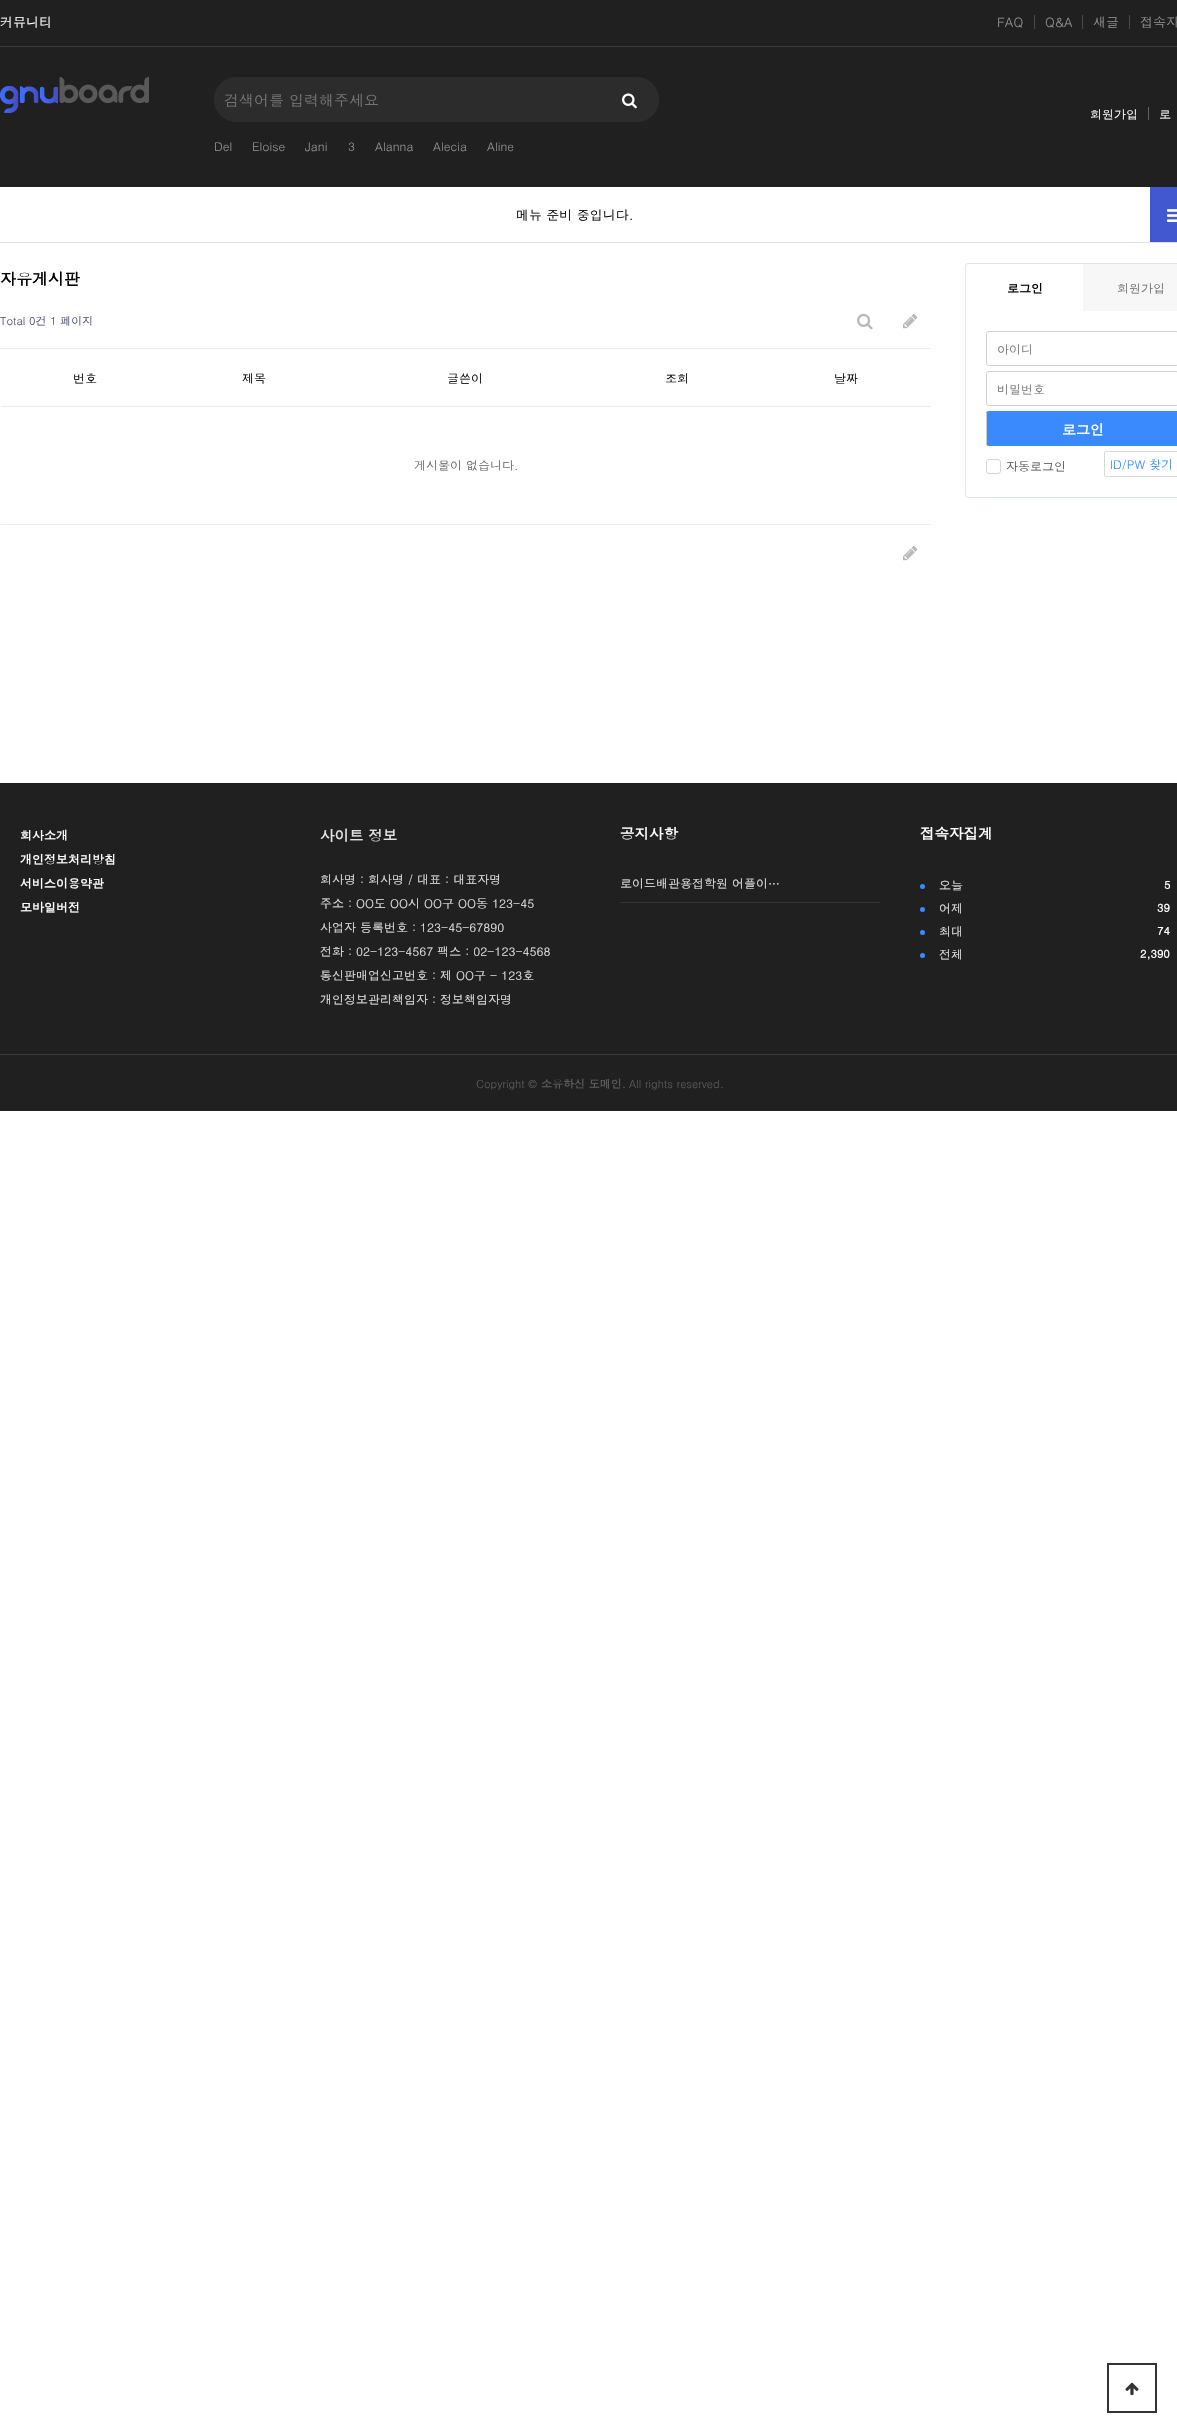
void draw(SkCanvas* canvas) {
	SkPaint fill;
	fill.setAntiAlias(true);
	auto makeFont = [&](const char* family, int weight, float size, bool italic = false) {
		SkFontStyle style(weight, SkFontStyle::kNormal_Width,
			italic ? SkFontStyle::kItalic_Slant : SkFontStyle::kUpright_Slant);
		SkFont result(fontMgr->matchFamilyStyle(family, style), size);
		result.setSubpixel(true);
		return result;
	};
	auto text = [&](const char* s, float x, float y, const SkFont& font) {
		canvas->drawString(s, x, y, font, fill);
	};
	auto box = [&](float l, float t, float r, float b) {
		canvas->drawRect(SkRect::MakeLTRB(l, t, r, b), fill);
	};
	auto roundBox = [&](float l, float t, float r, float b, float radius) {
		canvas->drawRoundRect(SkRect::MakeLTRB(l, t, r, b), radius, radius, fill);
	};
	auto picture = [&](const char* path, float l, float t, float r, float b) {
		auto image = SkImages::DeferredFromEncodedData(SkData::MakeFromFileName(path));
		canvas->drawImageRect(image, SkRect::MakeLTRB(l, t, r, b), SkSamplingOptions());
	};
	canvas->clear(0xFFFFFFFF);
	fill.setColor(0xFF212020);
	box(0, 0, 1177, 187);
	fill.setColor(0xFF383838);
	box(0, 46, 1177, 47);
	fill.setColor(0xFF4A4A4A);
	box(1034, 15, 1035, 29);
	box(1082, 15, 1083, 29);
	box(1129, 15, 1130, 29);
	picture("image0.png", 0, 77, 149, 113);
	fill.setColor(0xFF2C2C2C);
	canvas->drawPath(SkPathBuilder().moveTo(236.5f, 77).lineTo(599, 77).lineTo(599, 122).lineTo(236.5f, 122).cubicTo(224, 122, 214, 112, 214, 99.5f).cubicTo(214, 87, 224, 77, 236.5f, 77).close().detach(), fill);
	canvas->drawPath(SkPathBuilder().moveTo(599, 77).lineTo(636.5f, 77).cubicTo(649, 77, 659, 87, 659, 99.5f).cubicTo(659, 112, 649, 122, 636.5f, 122).lineTo(599, 122).close().detach(), fill);
	picture("image1.png", 622, 93, 637, 109);
	fill.setColor(0xFF616161);
	box(1148, 107, 1149, 120);
	fill.setColor(0xFFE0E2E5);
	box(0, 242, 1177, 243);
	fill.setColor(0xFF4158D1);
	box(1150, 187, 1177, 242);
	picture("image2.png", 1167, 209, 1177, 222);
	picture("image3.png", 857, 313, 873, 330);
	picture("image4.png", 903, 314, 918, 329);
	fill.setColor(0xFFECECEC);
	box(0, 348, 930, 349);
	box(0, 524, 1, 525);
	box(1, 406, 931, 407);
	fill.setColor(0xFFECF0F1);
	box(1, 524, 931, 525);
	picture("image4.png", 903, 546, 918, 561);
	fill.setStyle(SkPaint::kStroke_Style);
	fill.setStrokeWidth(1);
	fill.setColor(0xFFDDE7E9);
	canvas->drawRoundRect(SkRect::MakeLTRB(965.5f, 263.5f, 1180.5f, 497.5f), 2.5f, 2.5f, fill);
	fill.setStyle(SkPaint::kFill_Style);
	fill.setColor(0xFFF7F7F7);
	box(1083, 264, 1177, 311);
	fill.setStyle(SkPaint::kStroke_Style);
	fill.setColor(0xFFD0D3DB);
	canvas->drawRoundRect(SkRect::MakeLTRB(986.5f, 331.5f, 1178.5f, 365.5f), 2.5f, 2.5f, fill);
	canvas->drawRoundRect(SkRect::MakeLTRB(986.5f, 371.5f, 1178.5f, 405.5f), 2.5f, 2.5f, fill);
	fill.setStyle(SkPaint::kFill_Style);
	fill.setColor(0xFF3A8AFD);
	roundBox(986, 411, 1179, 446, 3);
	fill.setColor(0xFFCCCCCC);
	box(986, 413, 987, 445);
	fill.setStyle(SkPaint::kStroke_Style);
	fill.setColor(0xFFD0D4DF);
	canvas->drawRoundRect(SkRect::MakeLTRB(986.5f, 459.5f, 1000.5f, 473.5f), 2.5f, 2.5f, fill);
	fill.setColor(0xFFD5D9DD);
	canvas->drawRoundRect(SkRect::MakeLTRB(1104.5f, 451.5f, 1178.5f, 476.5f), 1.5f, 1.5f, fill);
	fill.setStyle(SkPaint::kFill_Style);
	fill.setColor(0xFF212020);
	box(0, 783, 1177, 1111);
	fill.setColor(0xFF343434);
	box(620, 902, 880, 903);
	fill.setColor(0xFF3A8AFD);
	canvas->drawCircle(922.5f, 886.5f, 2.5f, fill);
	canvas->drawCircle(922.5f, 909.5f, 2.5f, fill);
	canvas->drawCircle(922.5f, 932.5f, 2.5f, fill);
	canvas->drawCircle(922.5f, 955.5f, 2.5f, fill);
	fill.setColor(0xFF383838);
	box(0, 1054, 1177, 1055);
	fill.setStyle(SkPaint::kStroke_Style);
	fill.setStrokeWidth(2);
	fill.setColor(0xFF333333);
	canvas->drawRect(SkRect::MakeLTRB(1108, 2364, 1156, 2412), fill);
	picture("image5.png", 1125, 2382, 1139, 2396);
	auto font1 = makeFont("Dotum", 400, 13);
	fill.setStyle(SkPaint::kFill_Style);
	fill.setColor(0xFFFFFFFF);
	text("커뮤니티", 0, 27, font1);
	fill.setColor(0xFF919191);
	text("FAQ", 997, 27, font1);
	text("Q&A", 1045, 27, font1);
	text("새글", 1093, 27, font1);
	text("접속자", 1140, 27, font1);
	auto font2 = makeFont("Dotum", 400, 15);
	fill.setColor(0xFF757575);
	text("검색어를 입력해주세요", 224, 106, font2);
	auto font3 = makeFont("Dotum", 400, 12);
	fill.setColor(0xFF919191);
	text("Del", 214, 151, font3);
	text("Eloise", 252, 151, font3);
	text("Jani", 305, 151, font3);
	text("3", 348, 151, font3);
	text("Alanna", 375, 151, font3);
	text("Alecia", 433, 151, font3);
	text("Aline", 487, 151, font3);
	fill.setColor(0xFFFFFFFF);
	text("회원가입", 1090, 119, font3);
	text("로", 1159, 119, font3);
	fill.setColor(0xFF080808);
	text("메뉴 준비 중입니다.", 516, 220, font1);
	auto font4 = makeFont("Dotum", 700, 16);
	fill.setColor(0xFF000000);
	text("자유게시판", 0, 285, font4);
	auto font5 = makeFont("Dotum", 400, 11);
	fill.setColor(0xFF4E546F);
	text("Total 0건 1 페이지", 0, 325, font5);
	fill.setColor(0xFF000000);
	text("번호", 73, 383, font3);
	text("제목", 242, 383, font3);
	text("글쓴이", 447, 383, font3);
	text("조회", 665, 383, font3);
	text("날짜", 834, 383, font3);
	fill.setColor(0xFF666666);
	text("게시물이 없습니다.", 414, 470, font3);
	auto font6 = makeFont("Dotum", 700, 12);
	fill.setColor(0xFF000000);
	text("로그인", 1007, 293, font6);
	fill.setColor(0xFF6E6E6E);
	text("회원가입", 1117, 293, font3);
	fill.setColor(0xFF757575);
	text("아이디", 997, 354, font3);
	text("비밀번호", 997, 394, font3);
	auto font7 = makeFont("Dotum", 700, 14);
	fill.setColor(0xFFFFFFFF);
	text("로그인", 1062, 435, font7);
	fill.setColor(0xFF555555);
	text("자동로그인", 1006, 471, font3);
	fill.setColor(0xFF3A8AFD);
	text("ID/PW 찾기", 1110, 469, font3);
	fill.setColor(0xFFFFFFFF);
	text("회사소개", 20, 840, font6);
	text("개인정보처리방침", 20, 864, font6);
	text("서비스이용약관", 20, 888, font6);
	text("모바일버전", 20, 912, font6);
	auto font8 = makeFont("Dotum", 700, 14.5f);
	fill.setColor(0xFFE3E3E3);
	text("사이트 정보", 320, 841, font8);
	text("회사명 : 회사명 / 대표 : 대표자명", 320, 884, font3);
	text("주소 : OO도 OO시 OO구 OO동 123-45", 320, 908, font3);
	text("사업자 등록번호 : 123-45-67890", 320, 932, font3);
	text("전화 : 02-123-4567 팩스 : 02-123-4568", 320, 956, font3);
	text("통신판매업신고번호 : 제 OO구 - 123호", 320, 980, font3);
	text("개인정보관리책임자 : 정보책임자명", 320, 1004, font3);
	fill.setColor(0xFFFFFFFF);
	text("공지사항", 620, 839, font8);
	fill.setColor(0xFFE3E3E3);
	text("로이드배관용접학원 어플이…", 620, 888, font3);
	fill.setColor(0xFFFFFFFF);
	text("접속자집계", 920, 839, font8);
	fill.setColor(0xFFE3E3E3);
	text("오늘", 939, 890, font3);
	auto font9 = makeFont("Dotum", 700, 11);
	fill.setColor(0xFFFFFFFF);
	text("5", 1164, 889, font9);
	fill.setColor(0xFFE3E3E3);
	text("어제", 939, 913, font3);
	fill.setColor(0xFFFFFFFF);
	text("39", 1157, 912, font9);
	fill.setColor(0xFFE3E3E3);
	text("최대", 939, 936, font3);
	fill.setColor(0xFFFFFFFF);
	text("74", 1157, 935, font9);
	fill.setColor(0xFFE3E3E3);
	text("전체", 939, 959, font3);
	fill.setColor(0xFFFFFFFF);
	text("2,390", 1140, 958, font9);
	fill.setColor(0xFF5B5B5B);
	text("Copyright ©", 476, 1088, font5);
	text("소유하신 도메인.", 541, 1088, font9);
	text("All rights reserved.", 629, 1088, font5);
}
